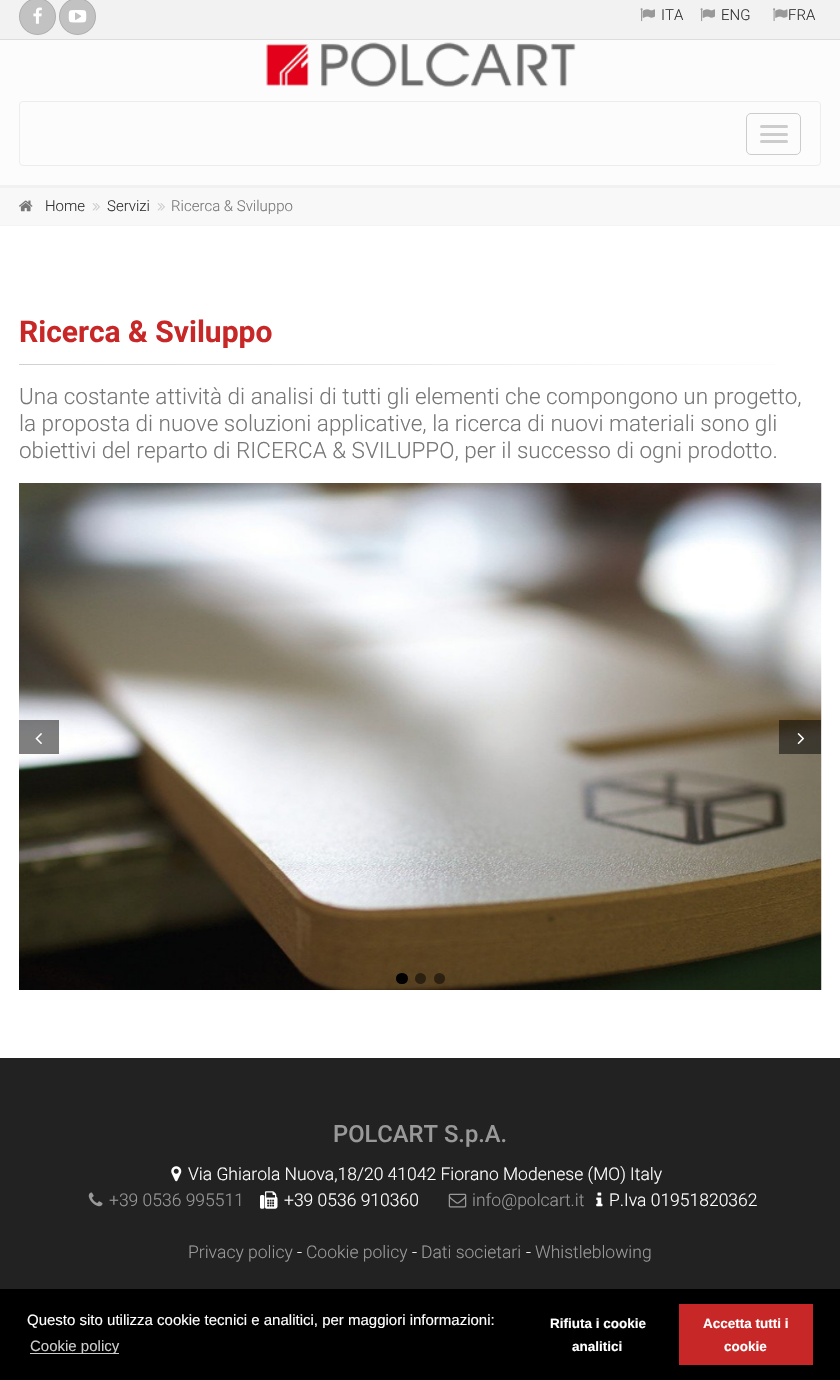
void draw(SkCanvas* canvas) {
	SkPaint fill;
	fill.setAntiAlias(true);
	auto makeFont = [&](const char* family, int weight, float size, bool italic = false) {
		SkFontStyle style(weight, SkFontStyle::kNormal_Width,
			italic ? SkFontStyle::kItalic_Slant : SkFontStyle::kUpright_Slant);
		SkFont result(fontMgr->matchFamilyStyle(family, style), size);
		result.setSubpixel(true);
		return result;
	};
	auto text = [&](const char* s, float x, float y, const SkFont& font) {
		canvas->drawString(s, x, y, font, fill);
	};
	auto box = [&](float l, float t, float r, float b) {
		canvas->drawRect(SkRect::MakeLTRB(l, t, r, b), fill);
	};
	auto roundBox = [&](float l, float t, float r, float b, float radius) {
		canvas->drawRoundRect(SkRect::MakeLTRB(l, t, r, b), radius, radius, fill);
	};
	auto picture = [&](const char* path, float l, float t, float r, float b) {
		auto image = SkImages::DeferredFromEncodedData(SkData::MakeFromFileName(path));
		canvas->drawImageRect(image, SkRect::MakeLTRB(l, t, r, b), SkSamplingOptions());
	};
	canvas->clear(0xFFFFFFFF);
	fill.setColor(0xFFF2F2F2);
	box(0, 0, 840, 39);
	fill.setColor(0xFFC2C2C2);
	canvas->drawCircle(37.5f, 16.5f, 18.5f, fill);
	fill.setStyle(SkPaint::kStroke_Style);
	fill.setStrokeWidth(1);
	fill.setColor(0x1A000000);
	canvas->drawCircle(37.5f, 16.5f, 18, fill);
	picture("image0.png", 33, 7, 42, 24);
	fill.setStyle(SkPaint::kFill_Style);
	fill.setColor(0xFFC2C2C2);
	canvas->drawCircle(77.5f, 16.5f, 18.5f, fill);
	fill.setStyle(SkPaint::kStroke_Style);
	fill.setColor(0x1A000000);
	canvas->drawCircle(77.5f, 16.5f, 18, fill);
	picture("image1.png", 68, 10, 87, 23);
	picture("image2.png", 640, 8, 655, 22);
	picture("image2.png", 700, 8, 715, 22);
	picture("image3.png", 773, 8, 788, 21);
	fill.setStyle(SkPaint::kFill_Style);
	fill.setColor(0xFFFCFCFC);
	box(0, 40, 840, 185);
	fill.setColor(0xFFDDDDDD);
	box(0, 39, 840, 40);
	fill.setColor(0xFFF1F1F1);
	box(0, 185, 840, 188);
	picture("image4.png", 266, 42, 576, 87);
	fill.setStyle(SkPaint::kStroke_Style);
	fill.setColor(0xFFEDEDED);
	canvas->drawRoundRect(SkRect::MakeLTRB(19.5f, 101.5f, 820.5f, 165.5f), 3.5f, 3.5f, fill);
	fill.setColor(0xFFCCCCCC);
	canvas->drawRoundRect(SkRect::MakeLTRB(746.5f, 113.5f, 800.5f, 154.5f), 4.5f, 4.5f, fill);
	fill.setStyle(SkPaint::kFill_Style);
	roundBox(760, 125, 788, 128, 1.5f);
	roundBox(760, 133, 788, 136, 1.5f);
	roundBox(760, 140, 788, 143, 1.5f);
	fill.setColor(0xFFF8F8F8);
	box(0, 188, 840, 225);
	fill.setColor(0xFFF4F4F4);
	box(0, 225, 840, 226);
	picture("image5.png", 19, 200, 33, 212);
	picture("image6.png", 92, 203, 100, 211);
	picture("image6.png", 157, 203, 165, 211);
	{
		const SkColor colors[] = {0xFFD1D1D1, 0xFFE0E0E0, 0xFFF2F2F2, 0xFFFFFFFF};
		const float stops[] = {0, 0.35f, 0.7f, 1};
		const SkPoint ends[] = {{19, 364}, {821, 364}};
		fill.setShader(SkGradientShader::MakeLinear(ends, colors, stops, 4, SkTileMode::kClamp));
		fill.setAlpha(255);
	}
	box(19, 364, 775, 365);
	picture("image7.png", 19, 483, 822, 990);
	fill.setShader(nullptr);
	fill.setColor(0x80000000);
	box(19, 720, 59, 754);
	picture("image8.png", 35, 733, 42, 744);
	box(779, 720, 821, 754);
	picture("image9.png", 797, 733, 805, 745);
	fill.setColor(0xFF000000);
	roundBox(396, 973, 408, 984, 5.5f);
	fill.setColor(0x80000000);
	canvas->drawCircle(420.5f, 978.5f, 5.5f, fill);
	canvas->drawCircle(439.5f, 978.5f, 5.5f, fill);
	fill.setColor(0xFF222222);
	box(0, 1058, 840, 1289);
	picture("image10.png", 171, 1166, 182, 1182);
	picture("image11.png", 88, 1192, 103, 1207);
	picture("image12.png", 260, 1191, 278, 1209);
	picture("image13.png", 448, 1193, 467, 1208);
	picture("image14.png", 596, 1192, 603, 1207);
	fill.setColor(0xFF000000);
	box(0, 1289, 840, 1380);
	fill.setColor(0xFFCCCCCC);
	box(30, 1353, 119, 1354);
	fill.setColor(0xFFC82727);
	box(679, 1304, 813, 1365);
	auto font1 = makeFont("Roboto", 300, 15);
	fill.setColor(0xFF333333);
	text("ITA", 661, 20, font1);
	text("ENG", 721, 20, font1);
	text("FRA", 788, 20, font1);
	text("Home", 45, 211, font1);
	text("Servizi", 107, 211, font1);
	fill.setColor(0xFF777777);
	text("Ricerca & Sviluppo", 171, 211, font1);
	auto font2 = makeFont("Roboto", 700, 30);
	fill.setColor(0xFFC82727);
	text("Ricerca & Sviluppo", 19, 342, font2);
	auto font3 = makeFont("Roboto", 300, 22.5f);
	fill.setColor(0xFF777777);
	text("Una costante attività di analisi di tutti gli elementi che compongono un progetto,", 19, 404, font3);
	text("la proposta di nuove soluzioni applicative, la ricerca di nuovi materiali sono gli", 19, 431, font3);
	text("obiettivi del reparto di RICERCA & SVILUPPO, per il successo di ogni prodotto.", 19, 458, font3);
	auto font4 = makeFont("Roboto", 500, 23.75f);
	fill.setColor(0xFF999999);
	text("POLCART S.p.A.", 333, 1142, font4);
	auto font5 = makeFont("Roboto", 300, 17.5f);
	fill.setColor(0xFFFFFFFF);
	text("Via Ghiarola Nuova,18/20 41042 Fiorano Modenese (MO) Italy", 188, 1180, font5);
	fill.setColor(0xFF999999);
	text("+39 0536 995511", 109, 1206, font5);
	fill.setColor(0xFFFFFFFF);
	text("+39 0536 910360", 284, 1206, font5);
	fill.setColor(0xFF999999);
	text("info@polcart.it", 472, 1206, font5);
	fill.setColor(0xFFFFFFFF);
	text("P.Iva 01951820362", 609, 1206, font5);
	fill.setColor(0xFF999999);
	text("Privacy policy", 188, 1258, font5);
	fill.setColor(0xFFFFFFFF);
	text("-", 297, 1258, font5);
	fill.setColor(0xFF999999);
	text("Cookie policy", 306, 1258, font5);
	fill.setColor(0xFFFFFFFF);
	text("-", 412, 1258, font5);
	fill.setColor(0xFF999999);
	text("Dati societari", 421, 1258, font5);
	fill.setColor(0xFFFFFFFF);
	text("-", 526, 1258, font5);
	fill.setColor(0xFF999999);
	text("Whistleblowing", 535, 1258, font5);
	auto font6 = makeFont("Liberation Sans", 400, 15);
	fill.setColor(0xFFFFFFFF);
	text("Questo sito utilizza cookie tecnici e analitici, per maggiori informazioni:", 27, 1325, font6);
	fill.setColor(0xFFCCCCCC);
	text("Cookie policy", 30, 1351, font6);
	auto font7 = makeFont("Liberation Sans", 700, 13.5f);
	fill.setColor(0xFFFFFFFF);
	text("Rifiuta i cookie", 550, 1328, font7);
	text("analitici", 572, 1351, font7);
	text("Accetta tutti i", 703, 1328, font7);
	text("cookie", 724, 1351, font7);
}
